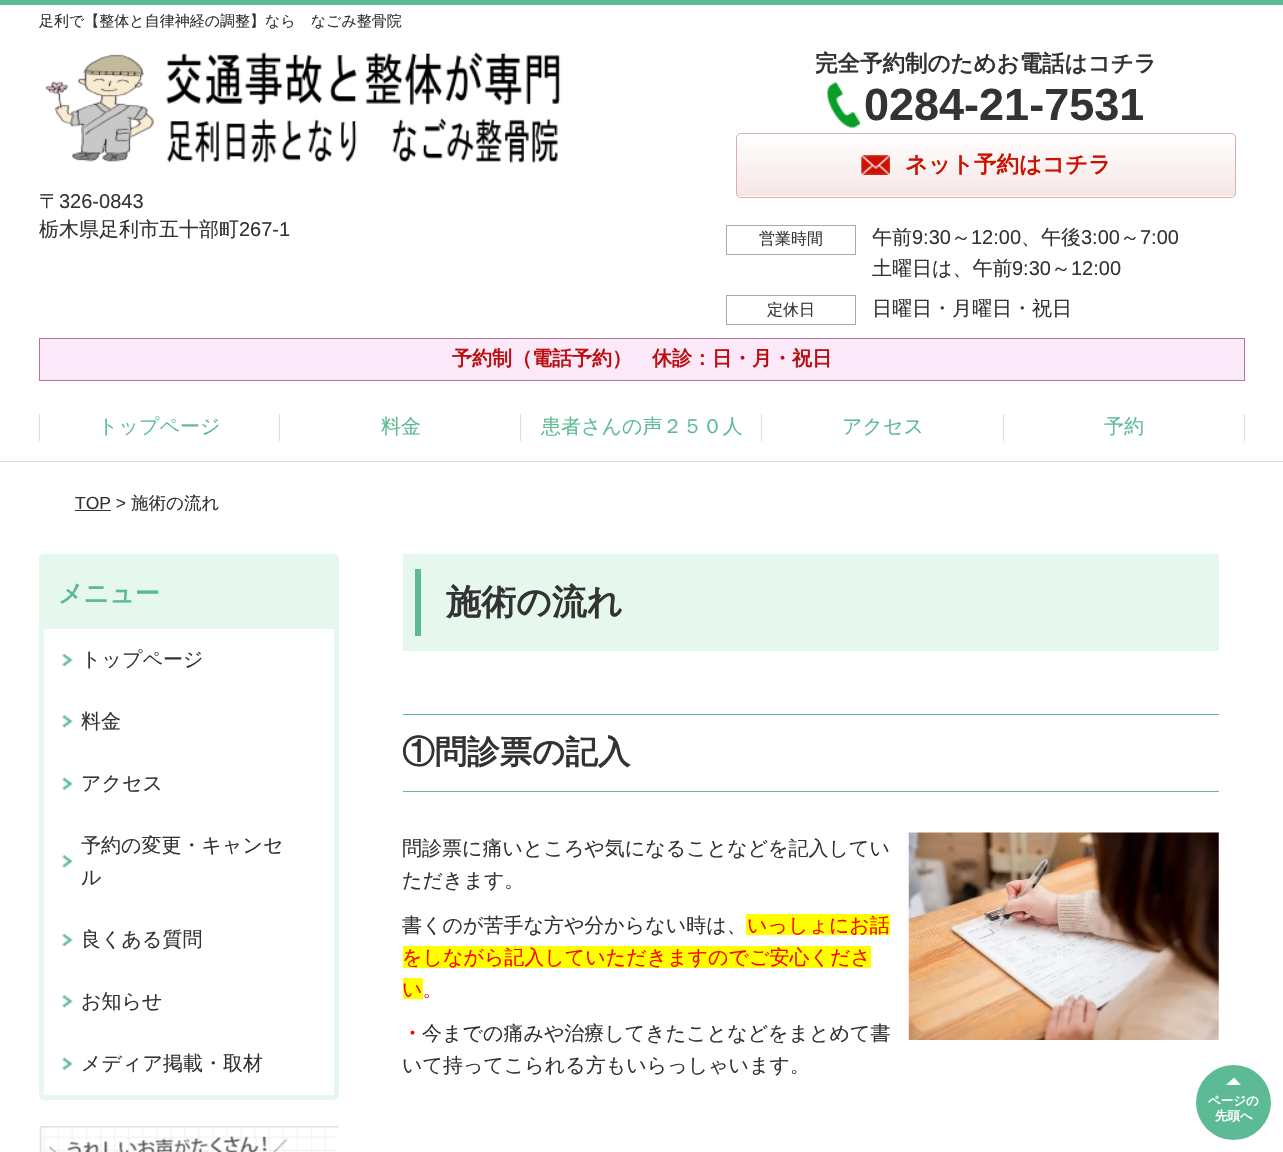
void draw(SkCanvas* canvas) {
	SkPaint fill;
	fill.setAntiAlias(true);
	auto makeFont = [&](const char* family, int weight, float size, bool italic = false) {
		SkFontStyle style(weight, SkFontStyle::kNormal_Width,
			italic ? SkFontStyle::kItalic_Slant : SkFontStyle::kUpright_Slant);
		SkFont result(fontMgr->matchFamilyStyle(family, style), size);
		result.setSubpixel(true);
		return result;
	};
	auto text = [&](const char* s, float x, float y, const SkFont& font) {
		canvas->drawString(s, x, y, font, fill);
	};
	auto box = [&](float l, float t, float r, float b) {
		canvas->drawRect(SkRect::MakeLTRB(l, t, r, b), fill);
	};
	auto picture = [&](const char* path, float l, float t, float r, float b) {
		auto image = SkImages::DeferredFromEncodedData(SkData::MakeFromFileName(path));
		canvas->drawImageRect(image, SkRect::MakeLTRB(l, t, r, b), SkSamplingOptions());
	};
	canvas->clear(0xFFFFFFFF);
	fill.setColor(0xFF5CBB94);
	box(0, 0, 1283, 5);
	picture("image0.png", 45, 52, 561, 163);
	picture("image1.png", 827, 82, 860, 128);
	canvas->save();
	canvas->clipPath(SkPathBuilder().moveTo(741, 133).lineTo(1231, 133).cubicTo(1234, 133, 1236, 135, 1236, 138).lineTo(1236, 193).cubicTo(1236, 196, 1234, 198, 1231, 198).lineTo(741, 198).cubicTo(738, 198, 736, 196, 736, 193).lineTo(736, 138).cubicTo(736, 135, 738, 133, 741, 133).close().detach(), true);
	{
		const SkColor colors[] = {0xFFFFFFFF, 0xFFF5E6E5};
		const float stops[] = {0, 1};
		const SkPoint ends[] = {{986, 134}, {986, 196}};
		fill.setShader(SkGradientShader::MakeLinear(ends, colors, stops, 2, SkTileMode::kClamp));
		fill.setAlpha(255);
	}
	box(736, 134, 1236, 196);
	canvas->restore();
	fill.setStyle(SkPaint::kStroke_Style);
	fill.setStrokeWidth(1);
	fill.setShader(nullptr);
	fill.setColor(0xFFD8B0AD);
	canvas->drawRoundRect(SkRect::MakeLTRB(736.5f, 133.5f, 1235.5f, 197.5f), 4.5f, 4.5f, fill);
	picture("image2.png", 861, 155, 890, 175);
	fill.setColor(0xFFAAAAAA);
	canvas->drawRect(SkRect::MakeLTRB(726.5f, 225.5f, 855.5f, 254.5f), fill);
	canvas->drawRect(SkRect::MakeLTRB(726.5f, 295.5f, 855.5f, 324.5f), fill);
	fill.setStyle(SkPaint::kFill_Style);
	fill.setColor(0xFFFBE9F9);
	canvas->drawRect(SkRect::MakeLTRB(39.5f, 338.5f, 1244.5f, 380.5f), fill);
	fill.setStyle(SkPaint::kStroke_Style);
	fill.setColor(0xFFAF779C);
	canvas->drawRect(SkRect::MakeLTRB(39.5f, 338.5f, 1244.5f, 380.5f), fill);
	fill.setStyle(SkPaint::kFill_Style);
	fill.setColor(0xFFDDDDDD);
	box(0, 461, 1283, 462);
	box(39, 414, 40, 441);
	box(279, 414, 280, 441);
	box(520, 414, 521, 441);
	box(761, 414, 762, 441);
	box(1003, 414, 1004, 441);
	box(1244, 414, 1245, 441);
	fill.setColor(0xFF333333);
	box(75, 510, 111, 511);
	fill.setColor(0xFFE6F8ED);
	canvas->drawRoundRect(SkRect::MakeLTRB(41.5f, 556.5f, 336.5f, 1097.5f), 2.5f, 2.5f, fill);
	fill.setStyle(SkPaint::kStroke_Style);
	fill.setStrokeWidth(5);
	canvas->drawRoundRect(SkRect::MakeLTRB(41.5f, 556.5f, 336.5f, 1097.5f), 2.5f, 2.5f, fill);
	fill.setStyle(SkPaint::kFill_Style);
	fill.setColor(0xFFFFFFFF);
	box(44, 629, 334, 1095);
	picture("image3.png", 62, 653, 73, 667);
	picture("image4.png", 62, 715, 73, 728);
	picture("image5.png", 62, 777, 73, 790);
	picture("image4.png", 62, 855, 73, 868);
	picture("image3.png", 62, 933, 73, 947);
	picture("image4.png", 62, 995, 73, 1008);
	picture("image6.png", 62, 1057, 73, 1070);
	picture("image7.png", 39, 1126, 339, 1152);
	fill.setColor(0xFFE6F8ED);
	box(403, 554, 1219, 651);
	fill.setColor(0xFF5CBB94);
	box(415, 569, 421, 636);
	box(403, 714, 1219, 715);
	box(403, 791, 1219, 792);
	fill.setColor(0xFFFFFF00);
	box(746, 914, 890, 935);
	box(403, 946, 871, 968);
	box(403, 978, 423, 999);
	picture("image8.png", 908, 832, 1219, 1040);
	fill.setColor(0xFF5CBB94);
	canvas->drawCircle(1233.5f, 1102.5f, 37.5f, fill);
	fill.setColor(0xFFFFFFFF);
	canvas->drawPath(SkPathBuilder().moveTo(1241, 1085).lineTo(1226, 1085).lineTo(1234, 1077.5f).close().detach(), fill);
	auto font1 = makeFont("WenQuanYi Zen Hei", 500, 15);
	fill.setColor(0xFF333333);
	text("足利で【整体と自律神経の調整】なら　なごみ整骨院", 39, 26, font1);
	auto font2 = makeFont("WenQuanYi Zen Hei", 500, 20);
	text("〒", 39, 208, font2);
	auto font3 = makeFont("Liberation Sans", 400, 20);
	text("326-0843", 59, 208, font3);
	text("栃木県足利市五十部町", 39, 236, font2);
	text("267-1", 239, 236, font3);
	auto font4 = makeFont("WenQuanYi Zen Hei", 700, 22.5f);
	text("完全予約制のためお電話はコチラ", 815, 71, font4);
	auto font5 = makeFont("Liberation Sans", 700, 45);
	text("0284-21-7531", 864, 120, font5);
	fill.setColor(0xFFCC1100);
	text("ネット予約はコチラ", 905, 172, font4);
	auto font6 = makeFont("WenQuanYi Zen Hei", 500, 16);
	fill.setColor(0xFF333333);
	text("営業時間", 759, 244, font6);
	text("午前", 872, 244, font2);
	text("9:30", 912, 244, font3);
	text("～", 951, 244, font2);
	text("12:00", 971, 244, font3);
	text("、午後", 1021, 244, font2);
	text("3:00", 1081, 244, font3);
	text("～", 1120, 244, font2);
	text("7:00", 1140, 244, font3);
	text("土曜日は、午前", 872, 275, font2);
	text("9:30", 1012, 275, font3);
	text("～", 1051, 275, font2);
	text("12:00", 1071, 275, font3);
	text("定休日", 767, 315, font6);
	text("日曜日・月曜日・祝日", 872, 315, font2);
	auto font7 = makeFont("WenQuanYi Zen Hei", 700, 20);
	fill.setColor(0xFFBB0F0F);
	text("予約制（電話予約）　休診：日・月・祝日", 452, 365, font7);
	fill.setColor(0xFF5CBB94);
	text("トップページ", 98, 433, font2);
	text("料金", 381, 433, font2);
	text("患者さんの声２５０人", 541, 433, font2);
	text("アクセス", 842, 433, font2);
	text("予約", 1104, 433, font2);
	auto font8 = makeFont("Liberation Sans", 400, 17.5f);
	fill.setColor(0xFF333333);
	text("TOP >", 75, 509, font8);
	auto font9 = makeFont("WenQuanYi Zen Hei", 500, 17.5f);
	text("施術の流れ", 131, 509, font9);
	auto font10 = makeFont("WenQuanYi Zen Hei", 700, 25);
	fill.setColor(0xFF5CBB94);
	text("メニュー", 58, 602, font10);
	fill.setColor(0xFF333333);
	text("トップページ", 81, 666, font2);
	text("料金", 81, 728, font2);
	text("アクセス", 81, 790, font2);
	text("予約の変更・キャンセ", 81, 852, font2);
	text("ル", 81, 884, font2);
	text("良くある質問", 81, 946, font2);
	text("お知らせ", 81, 1008, font2);
	text("メディア掲載・取材", 81, 1070, font2);
	auto font11 = makeFont("WenQuanYi Zen Hei", 700, 35);
	text("施術の流れ", 446, 614, font11);
	auto font12 = makeFont("WenQuanYi Zen Hei", 700, 32.5f);
	text("①問診票の記入", 402, 763, font12);
	text("問診票に痛いところや気になることなどを記入してい", 402, 855, font2);
	text("ただきます。", 402, 887, font2);
	text("書くのが苦手な方や分からない時は、", 402, 932, font2);
	fill.setColor(0xFFFF0000);
	text("いっしょにお話", 747, 932, font2);
	text("をしながら記入していただきますのでご安心くださ", 402, 964, font2);
	text("い。", 402, 996, font2);
	text("・", 402, 1040, font7);
	fill.setColor(0xFF333333);
	text("今までの痛みや治療してきたことなどをまとめて書", 422, 1040, font2);
	text("いて持ってこられる方もいらっしゃいます。", 402, 1072, font2);
	auto font13 = makeFont("WenQuanYi Zen Hei", 700, 12.5f);
	fill.setColor(0xFFFFFFFF);
	text("ページの", 1208, 1105, font13);
	text("先頭へ", 1215, 1120, font13);
}
